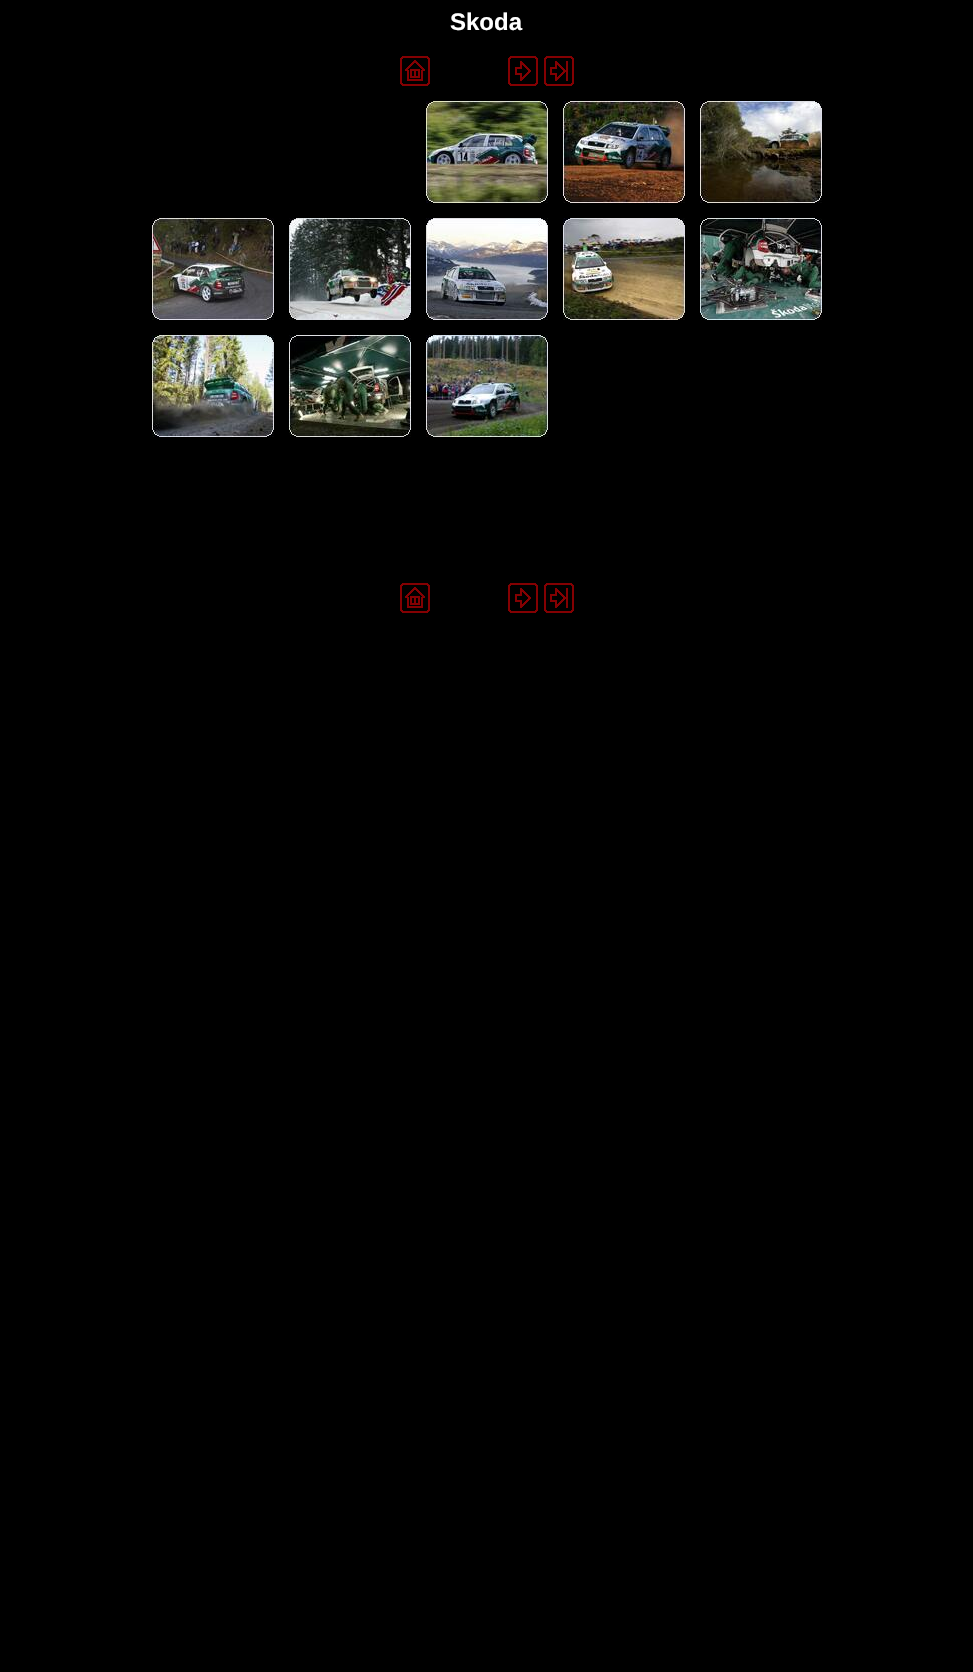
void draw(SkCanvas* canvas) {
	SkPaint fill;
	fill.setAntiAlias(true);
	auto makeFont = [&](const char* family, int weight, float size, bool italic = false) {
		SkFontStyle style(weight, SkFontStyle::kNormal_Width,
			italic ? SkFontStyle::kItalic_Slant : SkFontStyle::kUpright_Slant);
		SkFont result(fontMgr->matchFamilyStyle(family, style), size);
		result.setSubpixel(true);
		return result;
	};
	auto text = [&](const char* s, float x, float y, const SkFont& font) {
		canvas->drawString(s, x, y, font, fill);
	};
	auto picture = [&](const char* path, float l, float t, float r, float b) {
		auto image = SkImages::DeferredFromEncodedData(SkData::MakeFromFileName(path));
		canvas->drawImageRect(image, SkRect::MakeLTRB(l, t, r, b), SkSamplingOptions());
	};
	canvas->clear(0xFF000000);
	picture("image0.png", 400, 56, 430, 86);
	picture("image1.png", 508, 56, 538, 86);
	picture("image2.png", 544, 56, 574, 86);
	picture("image3.png", 426, 101, 548, 203);
	picture("image4.png", 563, 101, 685, 203);
	picture("image5.png", 700, 101, 822, 203);
	picture("image6.png", 152, 218, 274, 320);
	picture("image7.png", 289, 218, 411, 320);
	picture("image8.png", 426, 218, 548, 320);
	picture("image9.png", 563, 218, 685, 320);
	picture("image10.png", 700, 218, 822, 320);
	picture("image11.png", 152, 335, 274, 437);
	picture("image12.png", 289, 335, 411, 437);
	picture("image13.png", 426, 335, 548, 437);
	picture("image0.png", 400, 583, 430, 613);
	picture("image1.png", 508, 583, 538, 613);
	picture("image2.png", 544, 583, 574, 613);
	auto font1 = makeFont("Liberation Sans", 700, 24);
	fill.setColor(0xFFFFFFFF);
	text("Skoda", 450, 30, font1);
}
